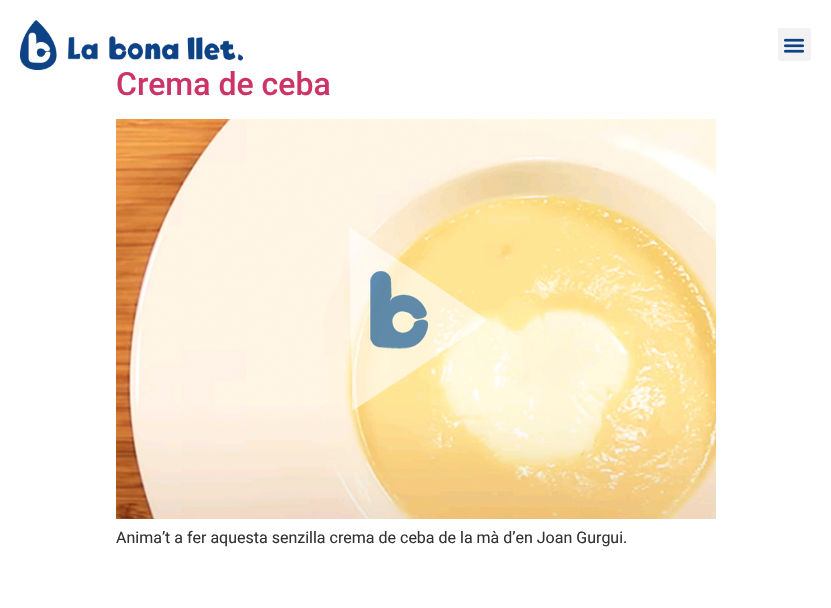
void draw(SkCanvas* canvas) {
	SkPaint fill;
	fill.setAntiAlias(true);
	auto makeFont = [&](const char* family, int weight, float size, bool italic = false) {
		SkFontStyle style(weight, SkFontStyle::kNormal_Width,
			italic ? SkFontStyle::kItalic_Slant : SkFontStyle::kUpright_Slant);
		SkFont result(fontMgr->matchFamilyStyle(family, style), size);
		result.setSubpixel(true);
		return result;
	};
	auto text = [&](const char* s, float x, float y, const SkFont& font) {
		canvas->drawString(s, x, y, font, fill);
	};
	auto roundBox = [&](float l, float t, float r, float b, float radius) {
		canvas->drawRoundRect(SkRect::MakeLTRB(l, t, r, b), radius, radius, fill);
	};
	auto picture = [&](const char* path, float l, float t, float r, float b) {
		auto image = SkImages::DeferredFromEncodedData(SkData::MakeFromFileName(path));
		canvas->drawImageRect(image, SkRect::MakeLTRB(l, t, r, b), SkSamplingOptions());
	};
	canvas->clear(0xFFFFFFFF);
	picture("image0.png", 20, 20, 243, 70);
	fill.setColor(0xFFF2F2F2);
	roundBox(778, 28, 811, 61, 3);
	picture("image1.png", 783, 38, 805, 53);
	picture("image2.png", 116, 119, 716, 519);
	auto font1 = makeFont("Roboto", 500, 32);
	fill.setColor(0xFFCC3366);
	text("Crema de ceba", 116, 95, font1);
	auto font2 = makeFont("Roboto", 400, 16);
	fill.setColor(0xFF333333);
	text("Anima’t a fer aquesta senzilla crema de ceba de la mà d’en Joan Gurgui.", 116, 543, font2);
}
